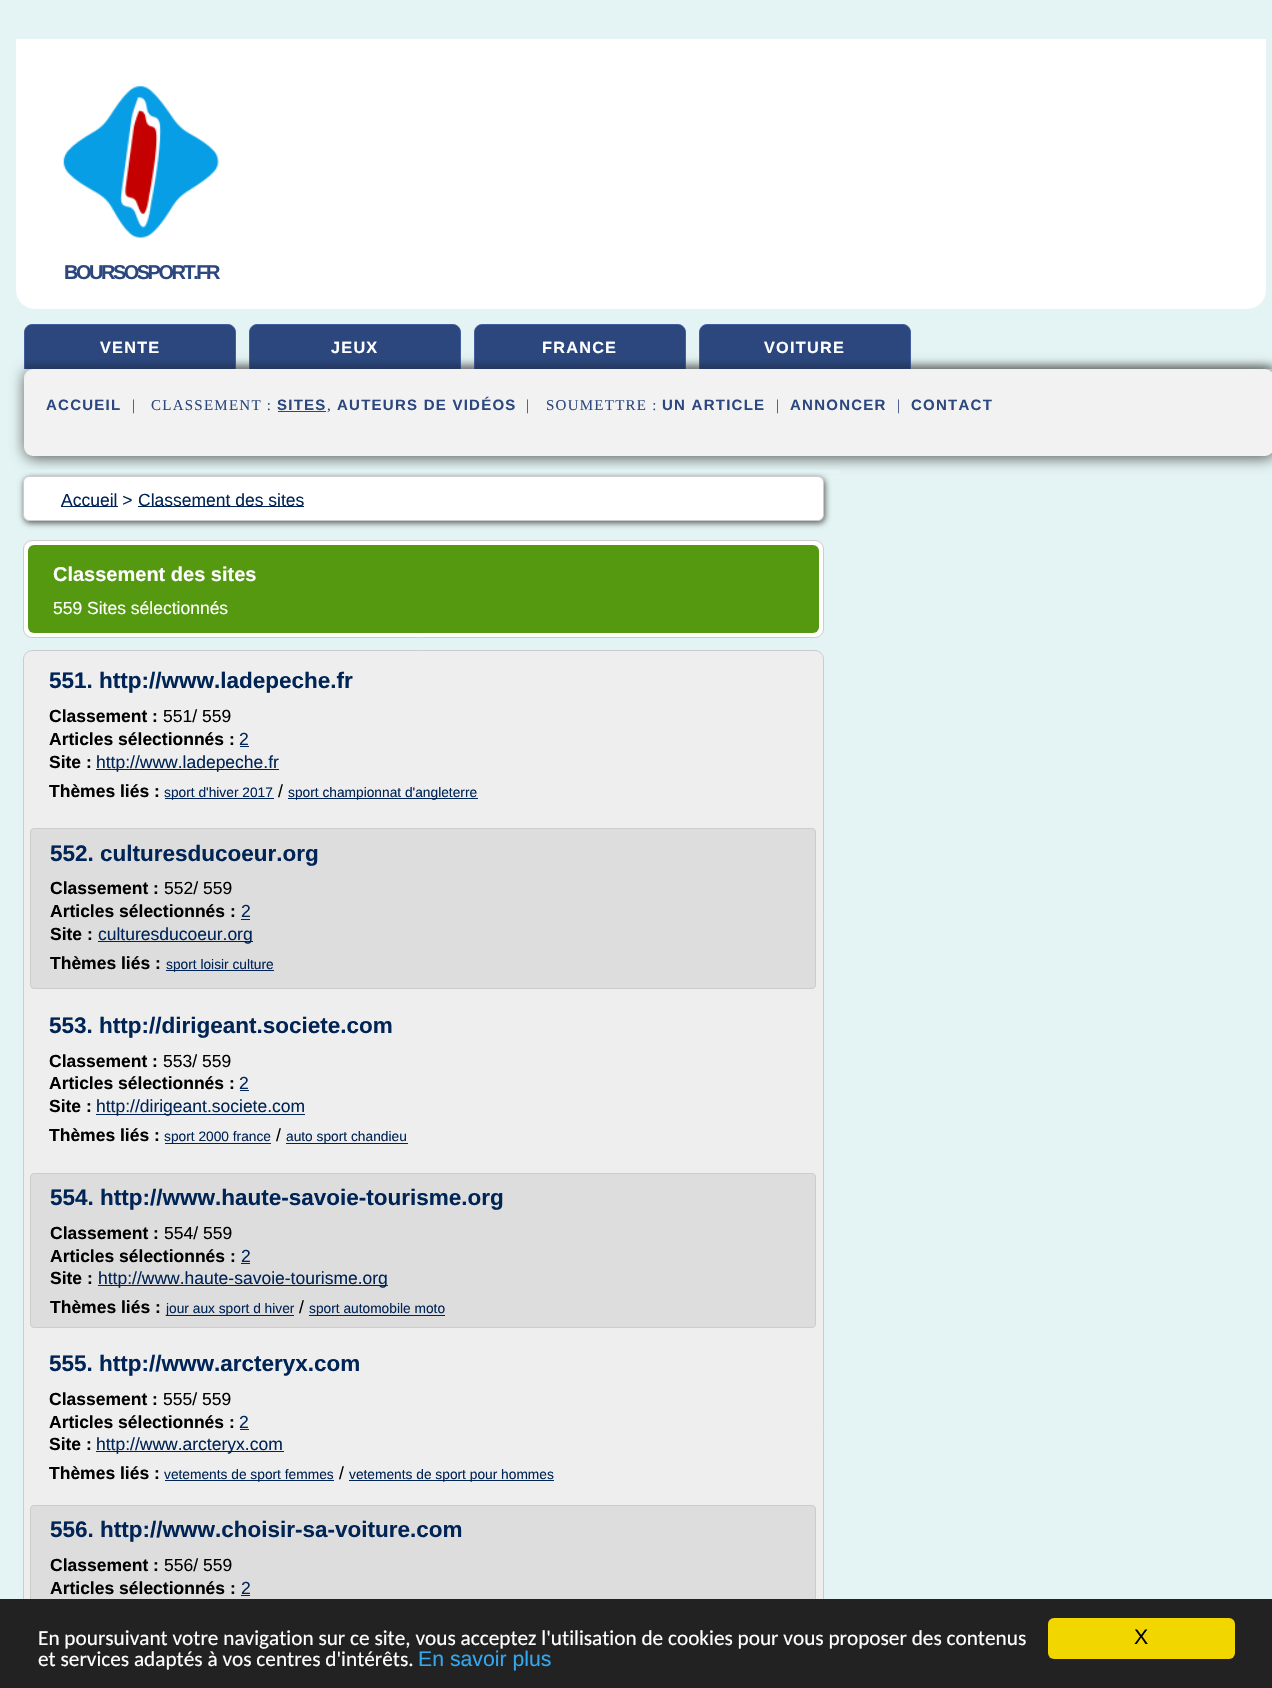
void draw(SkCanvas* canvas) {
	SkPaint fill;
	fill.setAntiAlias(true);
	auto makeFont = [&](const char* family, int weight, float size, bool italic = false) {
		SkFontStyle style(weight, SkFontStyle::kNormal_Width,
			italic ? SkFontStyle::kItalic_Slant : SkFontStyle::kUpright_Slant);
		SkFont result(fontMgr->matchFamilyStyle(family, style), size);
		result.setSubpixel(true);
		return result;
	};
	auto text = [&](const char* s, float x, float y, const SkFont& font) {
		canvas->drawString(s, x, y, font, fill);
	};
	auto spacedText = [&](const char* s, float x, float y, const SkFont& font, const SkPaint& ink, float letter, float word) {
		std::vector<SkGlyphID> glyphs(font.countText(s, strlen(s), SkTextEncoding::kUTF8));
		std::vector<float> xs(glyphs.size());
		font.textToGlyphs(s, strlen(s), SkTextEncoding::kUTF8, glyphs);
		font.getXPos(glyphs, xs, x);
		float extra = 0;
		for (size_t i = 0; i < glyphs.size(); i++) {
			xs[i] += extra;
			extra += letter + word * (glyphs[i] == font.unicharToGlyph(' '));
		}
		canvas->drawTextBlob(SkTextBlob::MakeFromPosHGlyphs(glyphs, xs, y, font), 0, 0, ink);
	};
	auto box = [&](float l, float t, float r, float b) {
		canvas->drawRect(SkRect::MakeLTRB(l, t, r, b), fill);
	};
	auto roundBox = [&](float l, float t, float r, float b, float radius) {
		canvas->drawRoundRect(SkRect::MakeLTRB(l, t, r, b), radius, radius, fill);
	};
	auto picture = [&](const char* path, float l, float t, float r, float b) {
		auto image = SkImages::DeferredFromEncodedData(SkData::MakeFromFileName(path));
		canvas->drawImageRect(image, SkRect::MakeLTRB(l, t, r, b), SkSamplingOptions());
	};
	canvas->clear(0xFFE4F4F4);
	fill.setColor(0xFFFFFFFF);
	canvas->drawPath(SkPathBuilder().moveTo(16, 39).lineTo(1266, 39).lineTo(1266, 290).cubicTo(1266, 300.5f, 1257.5f, 309, 1247, 309).lineTo(35, 309).cubicTo(24.5f, 309, 16, 300.5f, 16, 290).close().detach(), fill);
	picture("image0.png", 63, 86, 219, 238);
	fill.setColor(0xFF555555);
	fill.setMaskFilter(SkMaskFilter::MakeBlur(kNormal_SkBlurStyle, 7.5f));
	canvas->drawRoundRect(SkRect::MakeLTRB(25, 370, 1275, 458), 9, 9, fill);
	fill.setMaskFilter(nullptr);
	fill.setColor(0xFFF2F2F2);
	roundBox(24, 369, 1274, 456, 9);
	canvas->save();
	canvas->clipRect(SkRect::MakeLTRB(24, 324, 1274, 369));
	fill.setColor(0xFF2B477D);
	canvas->drawRoundRect(SkRect::MakeLTRB(24.5f, 324.5f, 235.5f, 375.5f), 7.5f, 7.5f, fill);
	fill.setStyle(SkPaint::kStroke_Style);
	fill.setStrokeWidth(1);
	fill.setColor(0xFF415F9D);
	canvas->drawRoundRect(SkRect::MakeLTRB(24.5f, 324.5f, 235.5f, 375.5f), 7.5f, 7.5f, fill);
	fill.setStyle(SkPaint::kFill_Style);
	fill.setColor(0xFF2B477D);
	roundBox(25, 325, 235, 375, 8);
	canvas->drawRoundRect(SkRect::MakeLTRB(249.5f, 324.5f, 460.5f, 375.5f), 7.5f, 7.5f, fill);
	fill.setStyle(SkPaint::kStroke_Style);
	fill.setColor(0xFF415F9D);
	canvas->drawRoundRect(SkRect::MakeLTRB(249.5f, 324.5f, 460.5f, 375.5f), 7.5f, 7.5f, fill);
	fill.setStyle(SkPaint::kFill_Style);
	fill.setColor(0xFF2B477D);
	roundBox(250, 325, 460, 375, 8);
	canvas->drawRoundRect(SkRect::MakeLTRB(474.5f, 324.5f, 685.5f, 375.5f), 7.5f, 7.5f, fill);
	fill.setStyle(SkPaint::kStroke_Style);
	fill.setColor(0xFF415F9D);
	canvas->drawRoundRect(SkRect::MakeLTRB(474.5f, 324.5f, 685.5f, 375.5f), 7.5f, 7.5f, fill);
	fill.setStyle(SkPaint::kFill_Style);
	fill.setColor(0xFF2B477D);
	roundBox(475, 325, 685, 375, 8);
	canvas->drawRoundRect(SkRect::MakeLTRB(699.5f, 324.5f, 910.5f, 375.5f), 7.5f, 7.5f, fill);
	fill.setStyle(SkPaint::kStroke_Style);
	fill.setColor(0xFF415F9D);
	canvas->drawRoundRect(SkRect::MakeLTRB(699.5f, 324.5f, 910.5f, 375.5f), 7.5f, 7.5f, fill);
	fill.setStyle(SkPaint::kFill_Style);
	fill.setColor(0xFF2B477D);
	roundBox(700, 325, 910, 375, 8);
	canvas->restore();
	canvas->save();
	canvas->clipRect(SkRect::MakeLTRB(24, 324, 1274, 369));
	fill.setColor(0xFF111111);
	fill.setMaskFilter(SkMaskFilter::MakeBlur(kNormal_SkBlurStyle, 4));
	canvas->drawRoundRect(SkRect::MakeLTRB(24, 368, 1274, 371), 1.5f, 1.5f, fill);
	fill.setMaskFilter(nullptr);
	canvas->restore();
	fill.setColor(0xFF2B477D);
	box(278, 411, 326, 412);
	fill.setColor(0xFFE4F4F4);
	box(25, 470, 840, 474);
	fill.setColor(0xFF555555);
	fill.setMaskFilter(SkMaskFilter::MakeBlur(kNormal_SkBlurStyle, 3));
	canvas->drawRoundRect(SkRect::MakeLTRB(24, 478, 825, 523), 6, 6, fill);
	fill.setMaskFilter(nullptr);
	fill.setColor(0xFFFFFFFF);
	canvas->drawRoundRect(SkRect::MakeLTRB(23.5f, 476.5f, 823.5f, 520.5f), 5.5f, 5.5f, fill);
	fill.setStyle(SkPaint::kStroke_Style);
	fill.setColor(0xFFCCCCCC);
	canvas->drawRoundRect(SkRect::MakeLTRB(23.5f, 476.5f, 823.5f, 520.5f), 5.5f, 5.5f, fill);
	fill.setStyle(SkPaint::kFill_Style);
	fill.setColor(0xFF002455);
	box(61, 506, 118, 507);
	box(138, 506, 304, 507);
	fill.setColor(0xFFFFFFFF);
	canvas->drawRoundRect(SkRect::MakeLTRB(23.5f, 540.5f, 823.5f, 637.5f), 8.5f, 8.5f, fill);
	fill.setStyle(SkPaint::kStroke_Style);
	fill.setColor(0xFFCCCCCC);
	canvas->drawRoundRect(SkRect::MakeLTRB(23.5f, 540.5f, 823.5f, 637.5f), 8.5f, 8.5f, fill);
	fill.setStyle(SkPaint::kFill_Style);
	fill.setColor(0xFF559911);
	roundBox(28, 545, 819, 633, 6);
	fill.setColor(0xFFEEEEEE);
	canvas->drawRoundRect(SkRect::MakeLTRB(23.5f, 650.5f, 823.5f, 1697.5f), 8.5f, 8.5f, fill);
	fill.setStyle(SkPaint::kStroke_Style);
	fill.setColor(0xFFCCCCCC);
	canvas->drawRoundRect(SkRect::MakeLTRB(23.5f, 650.5f, 823.5f, 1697.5f), 8.5f, 8.5f, fill);
	fill.setStyle(SkPaint::kFill_Style);
	fill.setColor(0xFF002455);
	box(240, 746, 249, 747);
	box(96, 769, 279, 770);
	box(165, 798, 274, 799);
	box(288, 798, 478, 799);
	fill.setColor(0xFFDDDDDD);
	canvas->drawRoundRect(SkRect::MakeLTRB(30.5f, 828.5f, 815.5f, 988.5f), 3.5f, 3.5f, fill);
	fill.setStyle(SkPaint::kStroke_Style);
	fill.setColor(0xFFCCCCCC);
	canvas->drawRoundRect(SkRect::MakeLTRB(30.5f, 828.5f, 815.5f, 988.5f), 3.5f, 3.5f, fill);
	fill.setStyle(SkPaint::kFill_Style);
	fill.setColor(0xFF002455);
	box(241, 919, 250, 920);
	box(98, 941, 253, 942);
	box(166, 970, 274, 971);
	box(240, 1090, 249, 1091);
	box(96, 1114, 305, 1115);
	box(165, 1143, 271, 1144);
	box(286, 1143, 408, 1144);
	fill.setColor(0xFFDDDDDD);
	canvas->drawRoundRect(SkRect::MakeLTRB(30.5f, 1173.5f, 815.5f, 1327.5f), 3.5f, 3.5f, fill);
	fill.setStyle(SkPaint::kStroke_Style);
	fill.setColor(0xFFCCCCCC);
	canvas->drawRoundRect(SkRect::MakeLTRB(30.5f, 1173.5f, 815.5f, 1327.5f), 3.5f, 3.5f, fill);
	fill.setStyle(SkPaint::kFill_Style);
	fill.setColor(0xFF002455);
	box(241, 1263, 250, 1264);
	box(98, 1285, 388, 1286);
	box(166, 1315, 294, 1316);
	box(309, 1315, 445, 1316);
	box(240, 1429, 249, 1430);
	box(96, 1451, 284, 1452);
	box(165, 1480, 334, 1481);
	box(349, 1480, 554, 1481);
	fill.setColor(0xFFDDDDDD);
	canvas->drawRoundRect(SkRect::MakeLTRB(30.5f, 1505.5f, 815.5f, 1658.5f), 3.5f, 3.5f, fill);
	fill.setStyle(SkPaint::kStroke_Style);
	fill.setColor(0xFFCCCCCC);
	canvas->drawRoundRect(SkRect::MakeLTRB(30.5f, 1505.5f, 815.5f, 1658.5f), 3.5f, 3.5f, fill);
	fill.setStyle(SkPaint::kFill_Style);
	fill.setColor(0xFF002455);
	box(241, 1595, 250, 1596);
	fill.setColor(0xFF222222);
	box(0, 1599, 1272, 1688);
	fill.setColor(0xFFF1D600);
	roundBox(1048, 1618, 1235, 1659, 6);
	auto font1 = makeFont("Liberation Sans", 700, 20);
	fill.setColor(0xFF2B477D);
	spacedText("BOURSOSPORT.FR", 64, 279, font1, fill, -2.5f, 0);
	auto font2 = makeFont("Liberation Sans", 700, 16.25f);
	fill.setColor(0xFFFFFFFF);
	spacedText("VENTE", 100, 353, font2, fill, 1.25f, 0);
	spacedText("JEUX", 331, 353, font2, fill, 1.25f, 0);
	spacedText("FRANCE", 542, 353, font2, fill, 1.25f, 0);
	spacedText("VOITURE", 764, 353, font2, fill, 1.25f, 0);
	auto font3 = makeFont("Liberation Sans", 700, 15);
	fill.setColor(0xFF2B477D);
	spacedText("ACCUEIL", 46, 410, font3, fill, 1.25f, 0);
	auto font4 = makeFont("Liberation Serif", 400, 15);
	spacedText("|", 132, 410, font4, fill, 1.25f, 0);
	spacedText("CLASSEMENT :", 151, 410, font4, fill, 1.25f, 0);
	spacedText("SITES", 277, 410, font3, fill, 1.25f, 0);
	spacedText(",", 327, 410, font4, fill, 1.25f, 0);
	spacedText("AUTEURS DE VIDÉOS", 337, 410, font3, fill, 1.25f, 0);
	spacedText("|", 526, 410, font4, fill, 1.25f, 0);
	spacedText("SOUMETTRE :", 546, 410, font4, fill, 1.25f, 0);
	spacedText("UN ARTICLE", 662, 410, font3, fill, 1.25f, 0);
	spacedText("|", 776, 410, font4, fill, 1.25f, 0);
	spacedText("ANNONCER", 790, 410, font3, fill, 1.25f, 0);
	spacedText("|", 897, 410, font4, fill, 1.25f, 0);
	spacedText("CONTACT", 911, 410, font3, fill, 1.25f, 0);
	auto font5 = makeFont("Liberation Sans", 400, 17.5f);
	fill.setColor(0xFF002455);
	text("Accueil >", 61, 506, font5);
	text("Classement des sites", 138, 506, font5);
	fill.setColor(0xFFFFFFFF);
	text("Classement des sites", 53, 581, font1);
	text("559 Sites sélectionnés", 53, 614, font5);
	auto font6 = makeFont("Liberation Sans", 700, 22.5f);
	fill.setColor(0xFF002455);
	text("551. http://www.ladepeche.fr", 49, 688, font6);
	auto font7 = makeFont("Liberation Sans", 700, 17.5f);
	fill.setColor(0xFF000000);
	text("Classement :", 49, 722, font7);
	text("551/ 559", 163, 722, font5);
	text("Articles sélectionnés :", 49, 745, font7);
	fill.setColor(0xFF002455);
	text("2", 239, 745, font5);
	fill.setColor(0xFF000000);
	text("Site :", 49, 768, font7);
	fill.setColor(0xFF002455);
	text("http://www.ladepeche.fr", 96, 768, font5);
	fill.setColor(0xFF000000);
	text("Thèmes liés :", 49, 797, font7);
	auto font8 = makeFont("Liberation Sans", 400, 13.75f);
	fill.setColor(0xFF002455);
	text("sport d'hiver 2017", 164, 797, font8);
	fill.setColor(0xFF000000);
	text("/", 278, 797, font5);
	fill.setColor(0xFF002455);
	text("sport championnat d'angleterre", 288, 797, font8);
	text("552. culturesducoeur.org", 50, 861, font6);
	fill.setColor(0xFF000000);
	text("Classement :", 50, 894, font7);
	text("552/ 559", 164, 894, font5);
	text("Articles sélectionnés :", 50, 917, font7);
	fill.setColor(0xFF002455);
	text("2", 241, 917, font5);
	fill.setColor(0xFF000000);
	text("Site :", 50, 940, font7);
	fill.setColor(0xFF002455);
	text("culturesducoeur.org", 98, 940, font5);
	fill.setColor(0xFF000000);
	text("Thèmes liés :", 50, 969, font7);
	fill.setColor(0xFF002455);
	text("sport loisir culture", 166, 969, font8);
	text("553. http://dirigeant.societe.com", 49, 1033, font6);
	fill.setColor(0xFF000000);
	text("Classement :", 49, 1067, font7);
	text("553/ 559", 163, 1067, font5);
	text("Articles sélectionnés :", 49, 1089, font7);
	fill.setColor(0xFF002455);
	text("2", 239, 1089, font5);
	fill.setColor(0xFF000000);
	text("Site :", 49, 1112, font7);
	fill.setColor(0xFF002455);
	text("http://dirigeant.societe.com", 96, 1112, font5);
	fill.setColor(0xFF000000);
	text("Thèmes liés :", 49, 1141, font7);
	fill.setColor(0xFF002455);
	text("sport 2000 france", 164, 1141, font8);
	fill.setColor(0xFF000000);
	text("/", 276, 1141, font5);
	fill.setColor(0xFF002455);
	text("auto sport chandieu", 286, 1141, font8);
	text("554. http://www.haute-savoie-tourisme.org", 50, 1205, font6);
	fill.setColor(0xFF000000);
	text("Classement :", 50, 1239, font7);
	text("554/ 559", 164, 1239, font5);
	text("Articles sélectionnés :", 50, 1262, font7);
	fill.setColor(0xFF002455);
	text("2", 241, 1262, font5);
	fill.setColor(0xFF000000);
	text("Site :", 50, 1284, font7);
	fill.setColor(0xFF002455);
	text("http://www.haute-savoie-tourisme.org", 98, 1284, font5);
	fill.setColor(0xFF000000);
	text("Thèmes liés :", 50, 1313, font7);
	fill.setColor(0xFF002455);
	text("jour aux sport d hiver", 166, 1313, font8);
	fill.setColor(0xFF000000);
	text("/", 299, 1313, font5);
	fill.setColor(0xFF002455);
	text("sport automobile moto", 309, 1313, font8);
	text("555. http://www.arcteryx.com", 49, 1371, font6);
	fill.setColor(0xFF000000);
	text("Classement :", 49, 1405, font7);
	text("555/ 559", 163, 1405, font5);
	text("Articles sélectionnés :", 49, 1428, font7);
	fill.setColor(0xFF002455);
	text("2", 239, 1428, font5);
	fill.setColor(0xFF000000);
	text("Site :", 49, 1450, font7);
	fill.setColor(0xFF002455);
	text("http://www.arcteryx.com", 96, 1450, font5);
	fill.setColor(0xFF000000);
	text("Thèmes liés :", 49, 1479, font7);
	fill.setColor(0xFF002455);
	text("vetements de sport femmes", 164, 1479, font8);
	fill.setColor(0xFF000000);
	text("/", 339, 1479, font5);
	fill.setColor(0xFF002455);
	text("vetements de sport pour hommes", 349, 1479, font8);
	text("556. http://www.choisir-sa-voiture.com", 50, 1537, font6);
	fill.setColor(0xFF000000);
	text("Classement :", 50, 1571, font7);
	text("556/ 559", 164, 1571, font5);
	text("Articles sélectionnés :", 50, 1594, font7);
	fill.setColor(0xFF002455);
	text("2", 241, 1594, font5);
	auto font9 = makeFont("Carlito", 400, 21.25f);
	fill.setColor(0xFFFFFFFF);
	text("En poursuivant votre navigation sur ce site, vous acceptez l'utilisation de cookies pour vous proposer des contenus", 38, 1645, font9);
	text("et services adaptés à vos centres d'intérêts.", 38, 1666, font9);
	auto font10 = makeFont("Liberation Sans", 400, 21.25f);
	fill.setColor(0xFF31A8F0);
	text("En savoir plus", 418, 1666, font10);
	fill.setColor(0xFF000000);
	text("X", 1134, 1644, font10);
}
